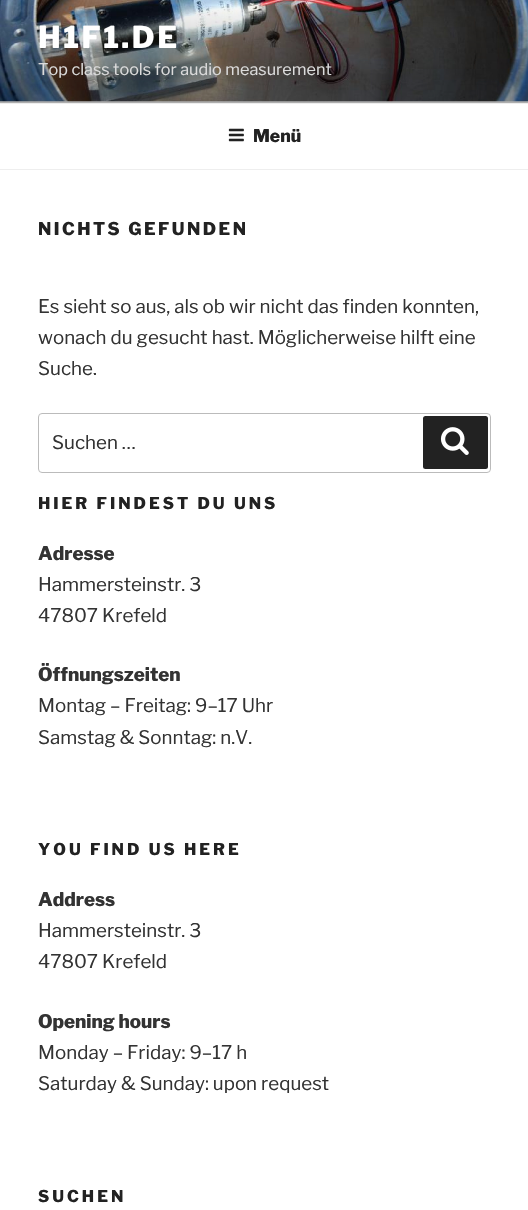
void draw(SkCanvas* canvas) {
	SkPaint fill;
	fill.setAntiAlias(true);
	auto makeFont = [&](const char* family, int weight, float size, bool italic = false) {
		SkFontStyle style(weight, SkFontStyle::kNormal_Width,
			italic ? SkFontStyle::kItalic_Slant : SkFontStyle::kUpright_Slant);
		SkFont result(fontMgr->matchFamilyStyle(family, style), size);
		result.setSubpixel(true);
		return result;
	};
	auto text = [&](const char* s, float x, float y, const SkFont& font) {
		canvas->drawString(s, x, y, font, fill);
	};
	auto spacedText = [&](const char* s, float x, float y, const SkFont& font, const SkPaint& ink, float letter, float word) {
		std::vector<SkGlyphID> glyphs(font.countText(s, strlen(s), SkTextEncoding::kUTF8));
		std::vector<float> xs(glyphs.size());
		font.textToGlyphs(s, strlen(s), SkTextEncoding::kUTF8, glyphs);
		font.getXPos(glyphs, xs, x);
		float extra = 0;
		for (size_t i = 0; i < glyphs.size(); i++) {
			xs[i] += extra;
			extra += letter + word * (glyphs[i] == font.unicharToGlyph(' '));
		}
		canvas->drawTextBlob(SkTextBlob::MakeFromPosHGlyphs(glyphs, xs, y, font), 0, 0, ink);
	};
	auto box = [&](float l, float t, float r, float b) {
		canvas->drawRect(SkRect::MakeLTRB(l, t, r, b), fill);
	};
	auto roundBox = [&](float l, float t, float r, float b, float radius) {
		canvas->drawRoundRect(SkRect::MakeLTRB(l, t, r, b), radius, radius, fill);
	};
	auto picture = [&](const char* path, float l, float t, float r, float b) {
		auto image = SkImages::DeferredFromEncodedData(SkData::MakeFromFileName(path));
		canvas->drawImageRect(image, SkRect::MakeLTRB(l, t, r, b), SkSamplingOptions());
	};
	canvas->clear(0xFFFFFFFF);
	fill.setColor(0xFFFAFAFA);
	box(0, 101, 528, 103);
	picture("image0.png", 0, 0, 528, 102);
	{
		const SkColor colors[] = {0x00000000, 0x4D000000, 0x4D000000};
		const float stops[] = {0, 0.75f, 1};
		const SkPoint ends[] = {{264, 0}, {264, 103}};
		fill.setShader(SkGradientShader::MakeLinear(ends, colors, stops, 3, SkTileMode::kClamp));
		fill.setAlpha(255);
	}
	box(0, 6, 528, 103);
	fill.setShader(nullptr);
	fill.setColor(0xFFEEEEEE);
	box(0, 103, 528, 104);
	box(0, 169, 528, 170);
	picture("image1.png", 228, 128, 244, 142);
	fill.setStyle(SkPaint::kStroke_Style);
	fill.setStrokeWidth(1);
	fill.setColor(0xFFBBBBBB);
	canvas->drawRoundRect(SkRect::MakeLTRB(38.5f, 413.5f, 490.5f, 472.5f), 3.5f, 3.5f, fill);
	fill.setStyle(SkPaint::kFill_Style);
	fill.setColor(0xFF222222);
	roundBox(423, 416, 488, 469, 2.5f);
	picture("image2.png", 440, 427, 469, 455);
	auto font1 = makeFont("Libre Franklin", 100, 30);
	fill.setColor(0xFFFFFFFF);
	spacedText("H1F1.DE", 38, 48, font1, fill, 2.5f, 0);
	auto font2 = makeFont("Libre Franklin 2", 100, 16.25f);
	fill.setColor(0xFFDCDCDC);
	text("Top class tools for audio measurement", 38, 75, font2);
	auto font3 = makeFont("Libre Franklin", 100, 17.5f);
	fill.setColor(0xFF222222);
	text("Menü", 253, 142, font3);
	spacedText("NICHTS GEFUNDEN", 38, 235, font3, fill, 2.5f, 0);
	auto font4 = makeFont("Libre Franklin 2", 100, 18.75f);
	fill.setColor(0xFF333333);
	text("Es sieht so aus, als ob wir nicht das finden konnten,", 38, 313, font4);
	text("wonach du gesucht hast. Möglicherweise hilft eine", 38, 344, font4);
	text("Suche.", 38, 375, font4);
	text("Suchen …", 52, 449, font4);
	auto font5 = makeFont("Libre Franklin", 100, 16.25f);
	fill.setColor(0xFF222222);
	spacedText("HIER FINDEST DU UNS", 38, 509, font5, fill, 3, 0);
	auto font6 = makeFont("Libre Franklin", 100, 18.75f);
	fill.setColor(0xFF333333);
	text("Adresse", 38, 560, font6);
	text("Hammersteinstr. 3", 38, 591, font4);
	text("47807 Krefeld", 38, 622, font4);
	text("Öffnungszeiten", 38, 681, font6);
	text("Montag – Freitag: 9–17 Uhr", 38, 712, font4);
	text("Samstag & Sonntag: n.V.", 38, 744, font4);
	fill.setColor(0xFF222222);
	spacedText("YOU FIND US HERE", 38, 855, font5, fill, 3, 0);
	fill.setColor(0xFF333333);
	text("Address", 38, 906, font6);
	text("Hammersteinstr. 3", 38, 937, font4);
	text("47807 Krefeld", 38, 968, font4);
	text("Opening hours", 38, 1028, font6);
	text("Monday – Friday: 9–17 h", 38, 1059, font4);
	text("Saturday & Sunday: upon request", 38, 1090, font4);
	fill.setColor(0xFF222222);
	spacedText("SUCHEN", 38, 1202, font5, fill, 3, 0);
}
